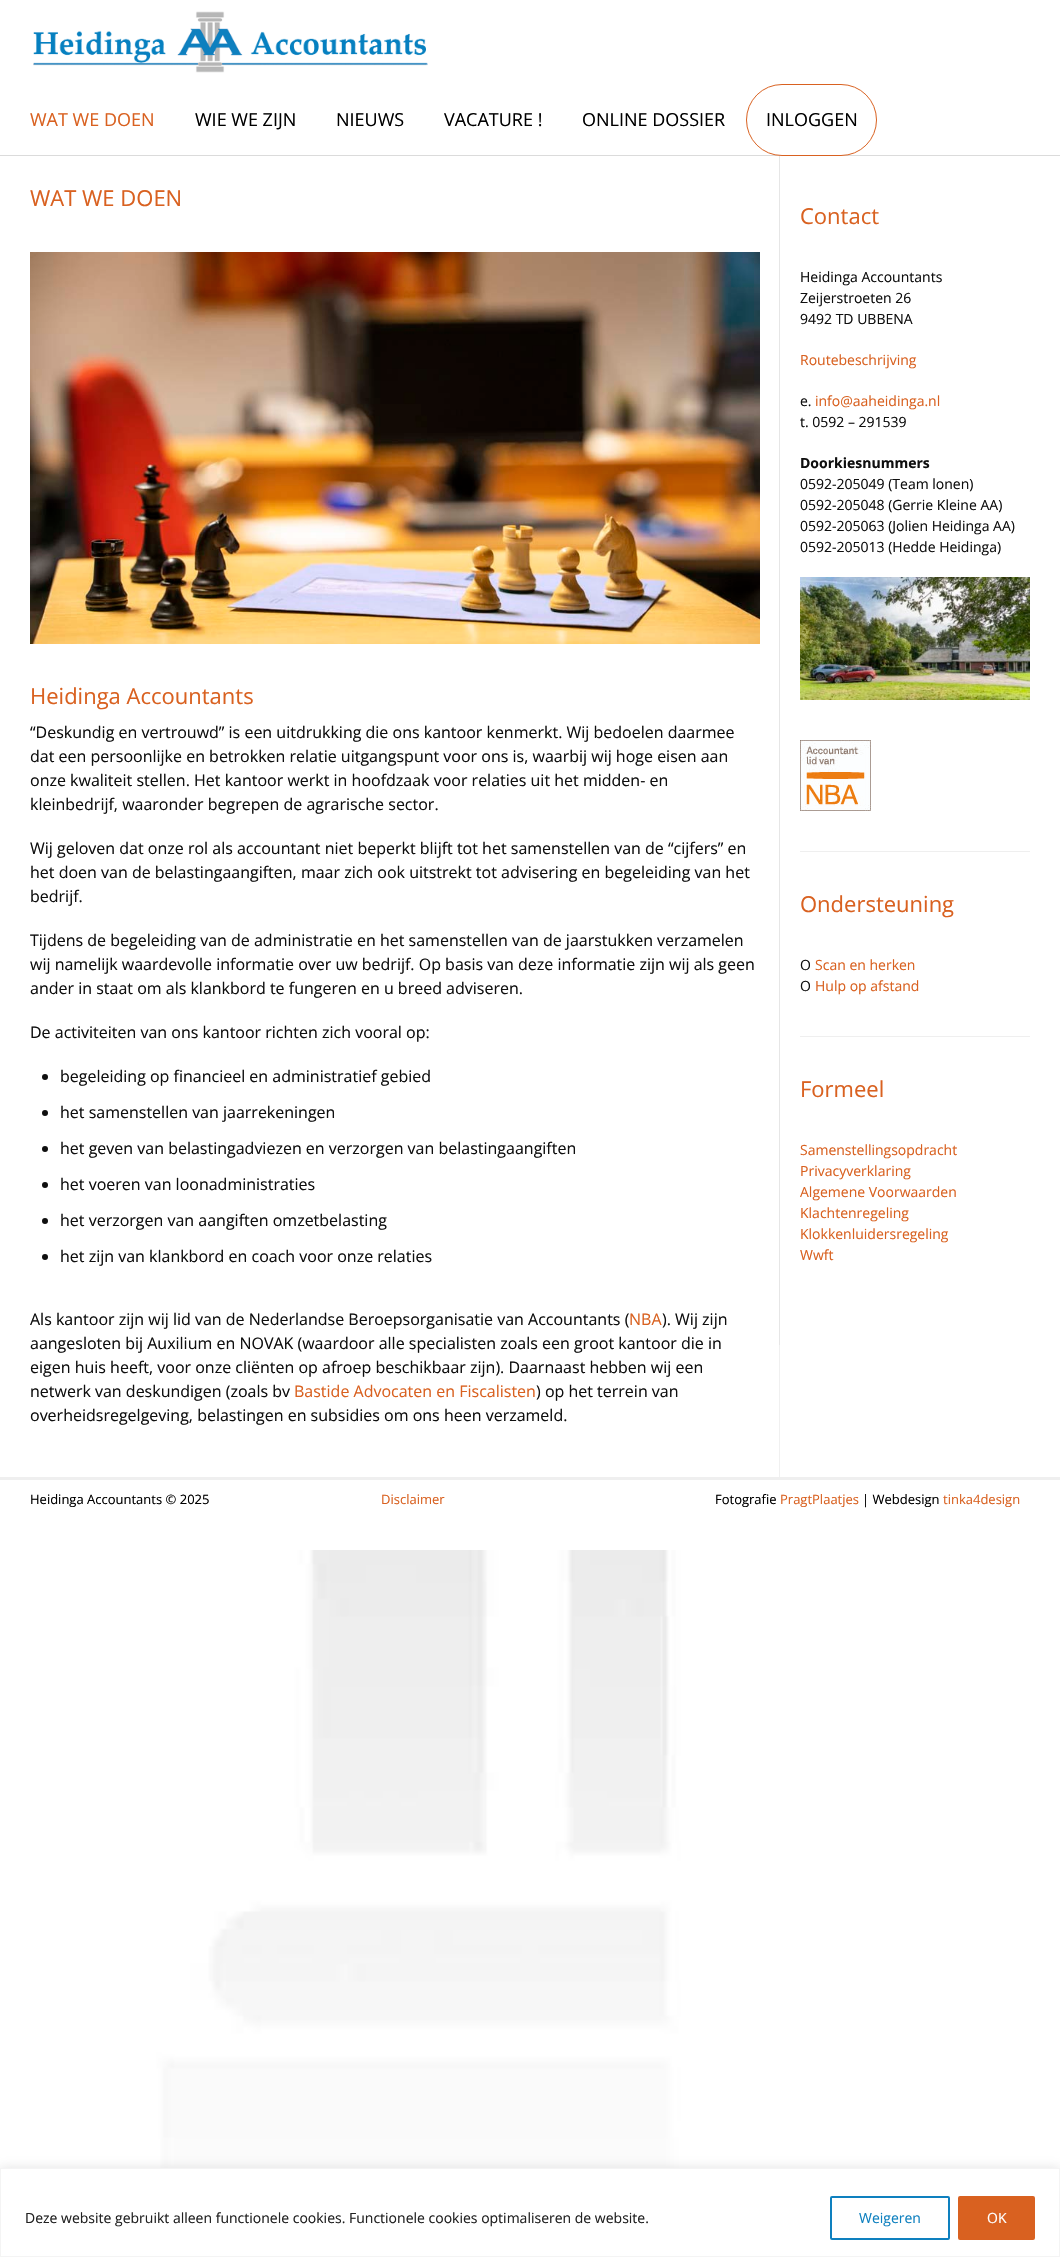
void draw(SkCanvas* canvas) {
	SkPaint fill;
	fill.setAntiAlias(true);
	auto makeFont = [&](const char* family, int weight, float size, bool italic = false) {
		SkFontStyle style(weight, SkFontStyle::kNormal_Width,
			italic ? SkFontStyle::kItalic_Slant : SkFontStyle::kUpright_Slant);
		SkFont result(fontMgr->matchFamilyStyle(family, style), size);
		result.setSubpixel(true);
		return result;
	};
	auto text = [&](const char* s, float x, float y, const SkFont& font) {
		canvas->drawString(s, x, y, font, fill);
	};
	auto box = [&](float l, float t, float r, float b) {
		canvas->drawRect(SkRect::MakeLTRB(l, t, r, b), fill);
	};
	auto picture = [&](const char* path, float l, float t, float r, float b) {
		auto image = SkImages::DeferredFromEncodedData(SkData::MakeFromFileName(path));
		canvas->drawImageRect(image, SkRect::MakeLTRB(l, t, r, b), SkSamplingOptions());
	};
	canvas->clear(0xFFFFFFFF);
	picture("image0.png", 156, 1550, 681, 2168);
	fill.setColor(0xFFF0F0F0);
	box(779, 1345, 780, 1477);
	fill.setColor(0xFFDBDBDB);
	box(0, 155, 1060, 156);
	picture("image1.png", 33, 11, 428, 73);
	fill.setColor(0xFFFFFFFF);
	canvas->drawRoundRect(SkRect::MakeLTRB(746.5f, 84.5f, 876.5f, 155.5f), 35.5f, 35.5f, fill);
	fill.setStyle(SkPaint::kStroke_Style);
	fill.setStrokeWidth(1);
	fill.setColor(0xFFD96120);
	canvas->drawRoundRect(SkRect::MakeLTRB(746.5f, 84.5f, 876.5f, 155.5f), 35.5f, 35.5f, fill);
	picture("image2.png", 30, 252, 760, 644);
	fill.setStyle(SkPaint::kFill_Style);
	fill.setColor(0xFF0F0F0F);
	canvas->drawCircle(45, 1077, 3, fill);
	canvas->drawCircle(45, 1113, 3, fill);
	canvas->drawCircle(45, 1149, 3, fill);
	canvas->drawCircle(45, 1185, 3, fill);
	canvas->drawCircle(45, 1221, 3, fill);
	canvas->drawCircle(45, 1257, 3, fill);
	fill.setColor(0xFFE6E6E6);
	box(779, 156, 780, 1345);
	picture("image3.png", 800, 577, 1030, 700);
	picture("image4.png", 800, 740, 871, 811);
	fill.setColor(0xFFEFEFEF);
	box(800, 851, 1030, 852);
	box(800, 1036, 1030, 1037);
	box(0, 1477, 1060, 1480);
	fill.setColor(0x4DACABAB);
	fill.setMaskFilter(SkMaskFilter::MakeBlur(kNormal_SkBlurStyle, 5));
	canvas->drawRect(SkRect::MakeLTRB(0, 2167, 1060, 2256), fill);
	fill.setMaskFilter(nullptr);
	fill.setColor(0xFFFFFFFF);
	canvas->drawRect(SkRect::MakeLTRB(0.5f, 2168.5f, 1059.5f, 2256.5f), fill);
	fill.setStyle(SkPaint::kStroke_Style);
	fill.setColor(0xFFF4F4F4);
	canvas->drawRect(SkRect::MakeLTRB(0.5f, 2168.5f, 1059.5f, 2256.5f), fill);
	fill.setStrokeWidth(2);
	fill.setColor(0xFF0E80BF);
	canvas->drawRoundRect(SkRect::MakeLTRB(831, 2197, 949, 2239), 1, 1, fill);
	fill.setStyle(SkPaint::kFill_Style);
	fill.setColor(0xFFD96120);
	canvas->drawRoundRect(SkRect::MakeLTRB(959, 2197, 1034, 2239), 1, 1, fill);
	fill.setStyle(SkPaint::kStroke_Style);
	canvas->drawRoundRect(SkRect::MakeLTRB(959, 2197, 1034, 2239), 1, 1, fill);
	auto font1 = makeFont("Open Sans", 400, 18);
	fill.setStyle(SkPaint::kFill_Style);
	text("WAT WE DOEN", 30, 126, font1);
	fill.setColor(0xFF000000);
	text("WIE WE ZIJN", 195, 126, font1);
	text("NIEUWS", 336, 126, font1);
	text("VACATURE !", 444, 126, font1);
	text("ONLINE DOSSIER", 582, 126, font1);
	text("INLOGGEN", 766, 126, font1);
	auto font2 = makeFont("Open Sans", 400, 22);
	fill.setColor(0xFFD96120);
	text("WAT WE DOEN", 30, 206, font2);
	text("Heidinga Accountants", 30, 704, font2);
	auto font3 = makeFont("Open Sans", 400, 16);
	fill.setColor(0xFF0F0F0F);
	text("“Deskundig en vertrouwd” is een uitdrukking die ons kantoor kenmerkt. Wij bedoelen daarmee", 30, 738, font3);
	text("dat een persoonlijke en betrokken relatie uitgangspunt voor ons is, waarbij wij hoge eisen aan", 30, 762, font3);
	text("onze kwaliteit stellen. Het kantoor werkt in hoofdzaak voor relaties uit het midden- en", 30, 786, font3);
	text("kleinbedrijf, waaronder begrepen de agrarische sector.", 30, 810, font3);
	text("Wij geloven dat onze rol als accountant niet beperkt blijft tot het samenstellen van de “cijfers” en", 30, 854, font3);
	text("het doen van de belastingaangiften, maar zich ook uitstrekt tot advisering en begeleiding van het", 30, 878, font3);
	text("bedrijf.", 30, 902, font3);
	text("Tijdens de begeleiding van de administratie en het samenstellen van de jaarstukken verzamelen", 30, 946, font3);
	text("wij namelijk waardevolle informatie over uw bedrijf. Op basis van deze informatie zijn wij als geen", 30, 970, font3);
	text("ander in staat om als klankbord te fungeren en u breed adviseren.", 30, 994, font3);
	text("De activiteiten van ons kantoor richten zich vooral op:", 30, 1038, font3);
	text("begeleiding op financieel en administratief gebied", 60, 1082, font3);
	text("het samenstellen van jaarrekeningen", 60, 1118, font3);
	text("het geven van belastingadviezen en verzorgen van belastingaangiften", 60, 1154, font3);
	text("het voeren van loonadministraties", 60, 1190, font3);
	text("het verzorgen van aangiften omzetbelasting", 60, 1226, font3);
	text("het zijn van klankbord en coach voor onze relaties", 60, 1262, font3);
	text("Als kantoor zijn wij lid van de Nederlandse Beroepsorganisatie van Accountants (", 30, 1325, font3);
	fill.setColor(0xFFD96120);
	text("NBA", 629, 1325, font3);
	fill.setColor(0xFF0F0F0F);
	text("). Wij zijn", 662, 1325, font3);
	text("aangesloten bij Auxilium en NOVAK (waardoor alle specialisten zoals een groot kantoor die in", 30, 1349, font3);
	text("eigen huis heeft, voor onze cliënten op afroep beschikbaar zijn). Daarnaast hebben wij een", 30, 1373, font3);
	text("netwerk van deskundigen (zoals bv", 30, 1397, font3);
	fill.setColor(0xFFD96120);
	text("Bastide Advocaten en Fiscalisten", 294, 1397, font3);
	fill.setColor(0xFF0F0F0F);
	text(") op het terrein van", 536, 1397, font3);
	text("overheidsregelgeving, belastingen en subsidies om ons heen verzameld.", 30, 1421, font3);
	fill.setColor(0xFFD96120);
	text("Contact", 800, 224, font2);
	auto font4 = makeFont("Open Sans", 400, 14);
	fill.setColor(0xFF0F0F0F);
	text("Heidinga Accountants", 800, 282, font4);
	text("Zeijerstroeten 26", 800, 303, font4);
	text("9492 TD UBBENA", 800, 324, font4);
	fill.setColor(0xFFD96120);
	text("Routebeschrijving", 800, 365, font4);
	fill.setColor(0xFF0F0F0F);
	text("e.", 800, 406, font4);
	fill.setColor(0xFFD96120);
	text("info@aaheidinga.nl", 815, 406, font4);
	fill.setColor(0xFF0F0F0F);
	text("t. 0592 – 291539", 800, 427, font4);
	auto font5 = makeFont("Open Sans", 700, 14);
	text("Doorkiesnummers", 800, 468, font5);
	text("0592-205049 (Team lonen)", 800, 489, font4);
	text("0592-205048 (Gerrie Kleine AA)", 800, 510, font4);
	text("0592-205063 (Jolien Heidinga AA)", 800, 531, font4);
	text("0592-205013 (Hedde Heidinga)", 800, 552, font4);
	fill.setColor(0xFFD96120);
	text("Ondersteuning", 800, 912, font2);
	fill.setColor(0xFF0F0F0F);
	text("O", 800, 970, font4);
	fill.setColor(0xFFD96120);
	text("Scan en herken", 815, 970, font4);
	fill.setColor(0xFF0F0F0F);
	text("O", 800, 991, font4);
	fill.setColor(0xFFD96120);
	text("Hulp op afstand", 815, 991, font4);
	text("Formeel", 800, 1097, font2);
	text("Samenstellingsopdracht", 800, 1155, font4);
	text("Privacyverklaring", 800, 1176, font4);
	text("Algemene Voorwaarden", 800, 1197, font4);
	text("Klachtenregeling", 800, 1218, font4);
	text("Klokkenluidersregeling", 800, 1239, font4);
	text("Wwft", 800, 1260, font4);
	auto font6 = makeFont("Open Sans", 400, 13);
	fill.setColor(0xFF000000);
	text("Heidinga Accountants © 2025", 30, 1504, font6);
	fill.setColor(0xFFD96120);
	text("Disclaimer", 381, 1504, font6);
	fill.setColor(0xFF000000);
	text("Fotografie", 715, 1504, font6);
	fill.setColor(0xFFD96120);
	text("PragtPlaatjes", 780, 1504, font6);
	fill.setColor(0xFF000000);
	text("| Webdesign", 862, 1504, font6);
	fill.setColor(0xFFD96120);
	text("tinka4design", 943, 1504, font6);
	fill.setColor(0xFF212121);
	text("Deze website gebruikt alleen functionele cookies. Functionele cookies optimaliseren de website.", 25, 2223, font4);
	fill.setColor(0xFF0E80BF);
	text("Weigeren", 859, 2223, font4);
	fill.setColor(0xFFFFFFFF);
	text("OK", 987, 2223, font4);
}
